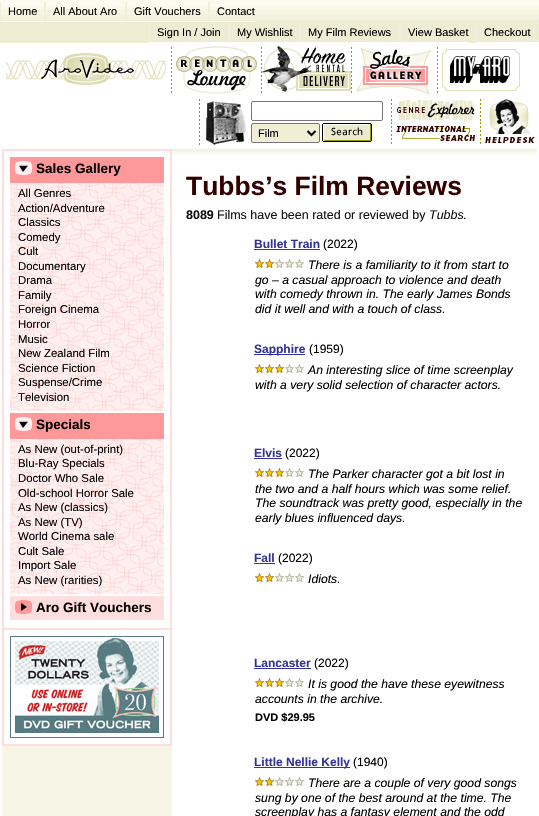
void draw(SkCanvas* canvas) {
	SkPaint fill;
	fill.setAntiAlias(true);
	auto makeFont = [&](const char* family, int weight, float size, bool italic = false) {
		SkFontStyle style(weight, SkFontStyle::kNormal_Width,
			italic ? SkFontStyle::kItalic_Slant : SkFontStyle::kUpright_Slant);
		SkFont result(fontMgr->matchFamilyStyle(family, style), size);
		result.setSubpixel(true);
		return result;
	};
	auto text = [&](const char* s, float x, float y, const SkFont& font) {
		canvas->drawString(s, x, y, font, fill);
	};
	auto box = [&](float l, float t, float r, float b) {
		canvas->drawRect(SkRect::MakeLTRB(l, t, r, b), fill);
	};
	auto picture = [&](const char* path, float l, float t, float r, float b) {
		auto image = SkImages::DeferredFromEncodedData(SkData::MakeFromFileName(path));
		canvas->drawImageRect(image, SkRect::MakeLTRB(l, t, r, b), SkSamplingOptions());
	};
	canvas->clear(0xFFFFFFFF);
	fill.setColor(0xFFEEEDD4);
	box(0, 20, 539, 43);
	picture("image0.png", 0, 0, 539, 20);
	fill.setColor(0xFFEFEFE0);
	box(44, 2, 45, 22);
	fill.setColor(0xFFFFFFFF);
	box(0, 21, 45, 22);
	fill.setColor(0xFFEFEFE0);
	box(0, 2, 1, 22);
	box(125, 2, 126, 22);
	fill.setColor(0xFFFFFFFF);
	box(45, 21, 126, 22);
	fill.setColor(0xFFEFEFE0);
	box(45, 2, 46, 22);
	box(208, 2, 209, 22);
	fill.setColor(0xFFFFFFFF);
	box(126, 21, 255, 22);
	fill.setColor(0xFFEFEFE0);
	box(126, 2, 127, 22);
	box(209, 2, 210, 22);
	box(228, 23, 229, 43);
	fill.setColor(0xFFFFFFFF);
	box(149, 42, 229, 43);
	fill.setColor(0xFFEFEFE0);
	box(149, 23, 150, 43);
	box(299, 23, 300, 43);
	fill.setColor(0xFFFFFFFF);
	box(229, 42, 300, 43);
	fill.setColor(0xFFEFEFE0);
	box(229, 23, 230, 43);
	box(399, 23, 400, 43);
	fill.setColor(0xFFFFFFFF);
	box(300, 42, 468, 43);
	fill.setColor(0xFFEFEFE0);
	box(300, 23, 301, 43);
	box(400, 23, 401, 43);
	box(538, 23, 539, 43);
	fill.setColor(0xFFFFFFFF);
	box(476, 42, 539, 43);
	fill.setColor(0xFFEFEFE0);
	box(476, 23, 477, 43);
	picture("image1.png", 6, 53, 166, 85);
	picture("image2.png", 171, 46, 257, 94);
	picture("image3.png", 261, 46, 351, 93);
	picture("image4.png", 351, 47, 438, 95);
	picture("image5.png", 442, 49, 520, 91);
	picture("image6.png", 199, 99, 246, 145);
	fill.setStyle(SkPaint::kStroke_Style);
	fill.setStrokeWidth(1);
	fill.setColor(0xFF767676);
	canvas->drawRoundRect(SkRect::MakeLTRB(251.5f, 101.5f, 382.5f, 120.5f), 1.5f, 1.5f, fill);
	fill.setStyle(SkPaint::kFill_Style);
	fill.setColor(0xFFF0EED5);
	canvas->drawRoundRect(SkRect::MakeLTRB(251.5f, 123.5f, 319.5f, 142.5f), 1.5f, 1.5f, fill);
	fill.setStyle(SkPaint::kStroke_Style);
	fill.setColor(0xFF767676);
	canvas->drawRoundRect(SkRect::MakeLTRB(251.5f, 123.5f, 319.5f, 142.5f), 1.5f, 1.5f, fill);
	fill.setStrokeWidth(2);
	fill.setColor(0xFF000000);
	canvas->drawPath(SkPathBuilder().moveTo(307.5f, 131).lineTo(311.5f, 135).lineTo(315.5f, 131).detach(), fill);
	picture("image7.png", 322, 123, 372, 142);
	picture("image8.png", 391, 99, 481, 121);
	picture("image9.png", 391, 122, 481, 144);
	picture("image10.png", 485, 99, 535, 143);
	fill.setStyle(SkPaint::kFill_Style);
	fill.setColor(0xFFF7F6E6);
	box(2, 746, 172, 816);
	fill.setStyle(SkPaint::kStroke_Style);
	fill.setColor(0xFFFFDEDE);
	canvas->drawRect(SkRect::MakeLTRB(3, 150, 171, 629), fill);
	picture("image11.png", 10, 183, 164, 594);
	fill.setStyle(SkPaint::kFill_Style);
	fill.setColor(0xFFFF9999);
	box(10, 157, 164, 183);
	picture("image12.png", 15, 161, 32, 175);
	box(10, 413, 164, 439);
	picture("image12.png", 15, 417, 32, 431);
	fill.setColor(0xFFFFFFFF);
	box(10, 411, 164, 413);
	fill.setColor(0xFFFFDEDE);
	box(10, 596, 164, 620);
	picture("image13.png", 15, 600, 32, 614);
	box(170, 630, 172, 746);
	box(2, 744, 172, 746);
	box(2, 630, 4, 746);
	picture("image14.png", 10, 636, 164, 738);
	picture("image15.png", 172, 149, 537, 159);
	fill.setColor(0xFF333399);
	box(254, 249, 320, 250);
	picture("image16.png", 255, 259, 304, 268);
	box(254, 354, 305, 355);
	picture("image17.png", 255, 364, 304, 373);
	box(254, 458, 282, 459);
	picture("image17.png", 255, 468, 304, 477);
	box(254, 563, 275, 564);
	picture("image16.png", 255, 573, 304, 582);
	box(254, 668, 311, 669);
	picture("image17.png", 255, 678, 304, 687);
	box(254, 767, 350, 768);
	picture("image16.png", 255, 777, 304, 786);
	auto font1 = makeFont("Liberation Sans", 400, 11);
	fill.setColor(0xFF000000);
	text("Home", 8, 15, font1);
	text("All About Aro", 53, 15, font1);
	text("Gift Vouchers", 134, 15, font1);
	text("Contact", 217, 15, font1);
	text("Sign In / Join", 157, 36, font1);
	text("My Wishlist", 237, 36, font1);
	text("My Film Reviews", 308, 36, font1);
	text("View Basket", 408, 36, font1);
	text("Checkout", 484, 36, font1);
	text("Film", 258, 137, font1);
	auto font2 = makeFont("Liberation Sans", 700, 13.5f);
	text("Sales Gallery", 36, 173, font2);
	auto font3 = makeFont("Liberation Sans", 400, 11.4f);
	text("All Genres", 18, 197, font3);
	text("Action/Adventure", 18, 212, font3);
	text("Classics", 18, 226, font3);
	text("Comedy", 18, 241, font3);
	text("Cult", 18, 255, font3);
	text("Documentary", 18, 270, font3);
	text("Drama", 18, 284, font3);
	text("Family", 18, 299, font3);
	text("Foreign Cinema", 18, 313, font3);
	text("Horror", 18, 328, font3);
	text("Music", 18, 343, font3);
	text("New Zealand Film", 18, 357, font3);
	text("Science Fiction", 18, 372, font3);
	text("Suspense/Crime", 18, 386, font3);
	text("Television", 18, 401, font3);
	text("Specials", 36, 429, font2);
	text("As New (out-of-print)", 18, 453, font3);
	text("Blu-Ray Specials", 18, 467, font3);
	text("Doctor Who Sale", 18, 482, font3);
	text("Old-school Horror Sale", 18, 497, font3);
	text("As New (classics)", 18, 511, font3);
	text("As New (TV)", 18, 526, font3);
	text("World Cinema sale", 18, 540, font3);
	text("Cult Sale", 18, 555, font3);
	text("Import Sale", 18, 569, font3);
	text("As New (rarities)", 18, 584, font3);
	text("Aro Gift Vouchers", 36, 612, font2);
	auto font4 = makeFont("Liberation Sans", 700, 26.4f);
	fill.setColor(0xFF330000);
	text("Tubbs’s Film Reviews", 186, 195, font4);
	auto font5 = makeFont("Liberation Sans", 700, 12.5f);
	fill.setColor(0xFF111111);
	text("8089", 186, 219, font5);
	auto font6 = makeFont("Liberation Sans", 400, 12.5f);
	text("Films have been rated or reviewed by", 217, 219, font6);
	auto font7 = makeFont("Liberation Sans", 400, 12.5f, true);
	text("Tubbs", 429, 219, font7);
	text(".", 463, 219, font6);
	auto font8 = makeFont("Liberation Sans", 700, 12);
	fill.setColor(0xFF333399);
	text("Bullet Train", 254, 248, font8);
	auto font9 = makeFont("Liberation Sans", 400, 12);
	fill.setColor(0xFF000000);
	text("(2022)", 323, 248, font9);
	auto font10 = makeFont("Liberation Sans", 400, 12.2f, true);
	text("There is a familiarity to it from start to", 308, 269, font10);
	text("go – a casual approach to violence and death", 255, 284, font10);
	text("with comedy thrown in. The early James Bonds", 255, 298, font10);
	text("did it well and with a touch of class.", 255, 313, font10);
	fill.setColor(0xFF333399);
	text("Sapphire", 254, 353, font8);
	fill.setColor(0xFF000000);
	text("(1959)", 309, 353, font9);
	text("An interesting slice of time screenplay", 308, 374, font10);
	text("with a very solid selection of character actors.", 255, 389, font10);
	fill.setColor(0xFF333399);
	text("Elvis", 254, 457, font8);
	fill.setColor(0xFF000000);
	text("(2022)", 285, 457, font9);
	text("The Parker character got a bit lost in", 308, 478, font10);
	text("the two and a half hours which was some relief.", 255, 493, font10);
	text("The soundtrack was pretty good, especially in the", 255, 507, font10);
	text("early blues influenced days.", 255, 522, font10);
	fill.setColor(0xFF333399);
	text("Fall", 254, 562, font8);
	fill.setColor(0xFF000000);
	text("(2022)", 278, 562, font9);
	text("Idiots.", 308, 583, font10);
	fill.setColor(0xFF333399);
	text("Lancaster", 254, 667, font8);
	fill.setColor(0xFF000000);
	text("(2022)", 314, 667, font9);
	text("It is good the have these eyewitness", 308, 688, font10);
	text("accounts in the archive.", 255, 703, font10);
	auto font11 = makeFont("Liberation Sans", 700, 11);
	text("DVD $29.95", 255, 721, font11);
	fill.setColor(0xFF333399);
	text("Little Nellie Kelly", 254, 766, font8);
	fill.setColor(0xFF000000);
	text("(1940)", 353, 766, font9);
	text("There are a couple of very good songs", 308, 787, font10);
	text("sung by one of the best around at the time. The", 255, 802, font10);
	text("screenplay has a fantasy element and the odd", 255, 816, font10);
}
